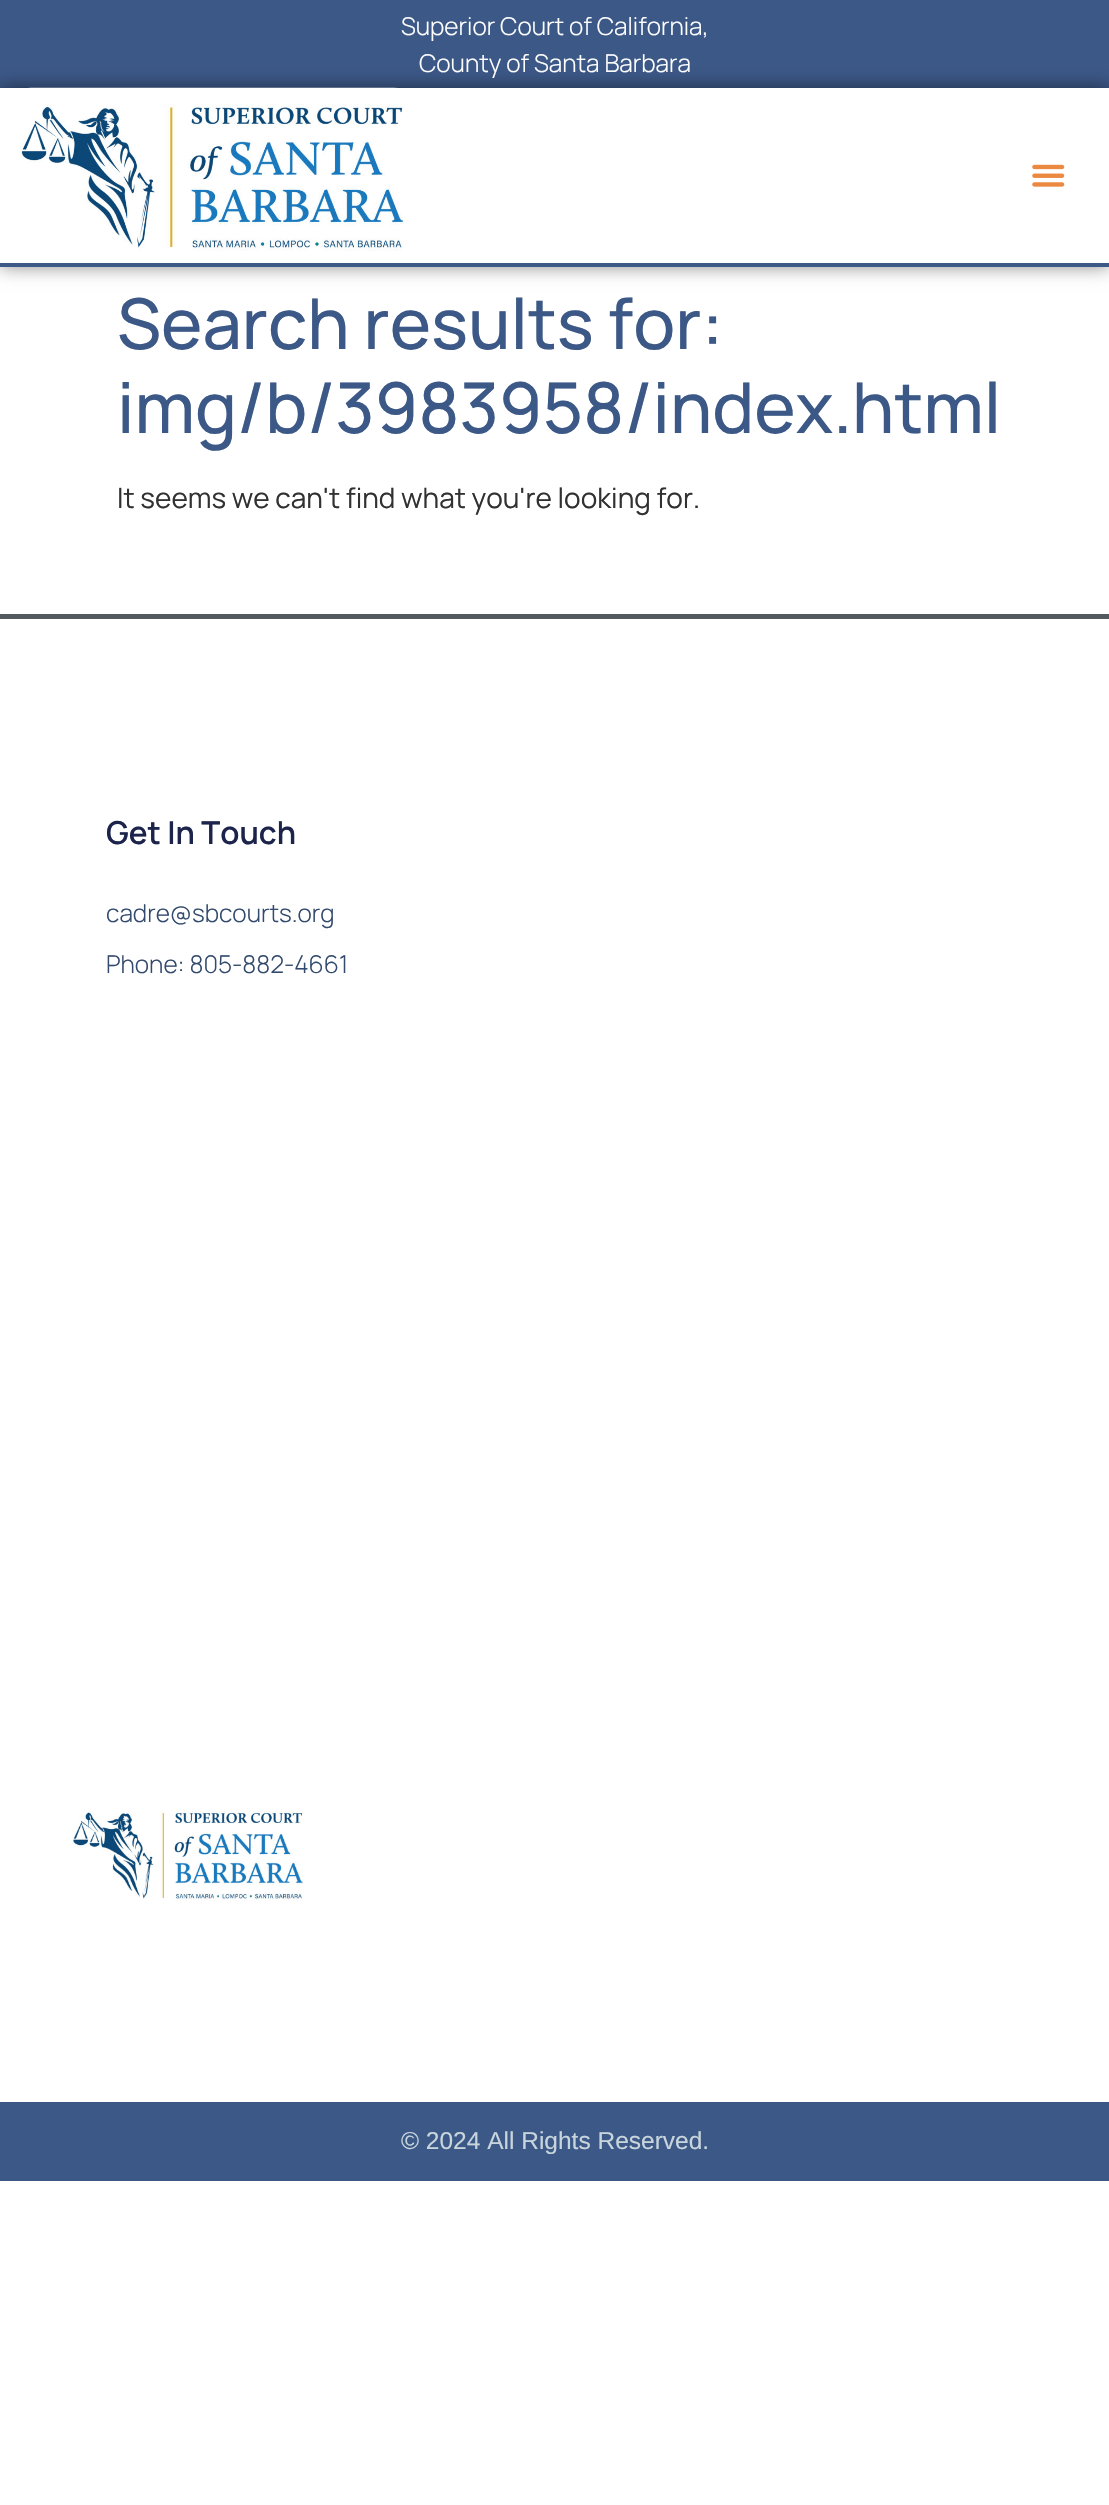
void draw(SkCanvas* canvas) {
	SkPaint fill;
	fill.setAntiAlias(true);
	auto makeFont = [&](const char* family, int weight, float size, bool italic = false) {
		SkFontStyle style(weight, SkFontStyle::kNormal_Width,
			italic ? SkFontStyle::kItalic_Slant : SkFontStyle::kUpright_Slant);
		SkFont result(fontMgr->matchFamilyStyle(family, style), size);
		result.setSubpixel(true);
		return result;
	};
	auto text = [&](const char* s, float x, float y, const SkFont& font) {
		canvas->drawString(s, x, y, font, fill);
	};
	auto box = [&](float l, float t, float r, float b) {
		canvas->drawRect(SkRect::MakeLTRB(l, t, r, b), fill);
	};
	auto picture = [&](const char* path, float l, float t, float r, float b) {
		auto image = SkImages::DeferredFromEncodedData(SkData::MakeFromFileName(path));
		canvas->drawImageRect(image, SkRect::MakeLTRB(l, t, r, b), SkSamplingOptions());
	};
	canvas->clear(0xFFFFFFFF);
	fill.setColor(0xFF3C5887);
	box(0, 0, 1109, 88);
	fill.setColor(0x80000000);
	fill.setMaskFilter(SkMaskFilter::MakeBlur(kNormal_SkBlurStyle, 9));
	canvas->drawRect(SkRect::MakeLTRB(0, 88, 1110, 266), fill);
	fill.setMaskFilter(nullptr);
	fill.setColor(0xFFFFFFFF);
	box(0, 88, 1109, 263);
	fill.setColor(0xFF3C5887);
	box(0, 263, 1109, 267);
	picture("image0.png", 19, 87, 405, 251);
	picture("image1.png", 1032, 164, 1065, 187);
	fill.setColor(0xFF54595F);
	box(0, 614, 1109, 619);
	picture("image2.png", 72, 1811, 304, 1901);
	fill.setColor(0xFF3C5887);
	box(0, 2102, 1109, 2181);
	auto font1 = makeFont("Manrope", 300, 24.5f);
	fill.setColor(0xFFFFFFFF);
	text("Superior Court of California,", 401, 35, font1);
	text("County of Santa Barbara", 419, 72, font1);
	auto font2 = makeFont("Manrope", 500, 70);
	fill.setColor(0xFF3C5887);
	text("Search results for:", 117, 349, font2);
	text("img/b/3983958/index.html", 117, 433, font2);
	auto font3 = makeFont("Manrope", 400, 28);
	fill.setColor(0xFF313131);
	text("It seems we can't find what you're looking for.", 117, 508, font3);
	auto font4 = makeFont("Manrope", 600, 31.5f);
	fill.setColor(0xFF1C244B);
	text("Get In Touch", 106, 844, font4);
	fill.setColor(0xFF324A6D);
	text("cadre@sbcourts.org", 106, 922, font1);
	text("Phone: 805-882-4661", 106, 973, font1);
	auto font5 = makeFont("Liberation Sans", 400, 24.5f);
	fill.setColor(0xFFC8D5DC);
	text("© 2024 All Rights Reserved.", 401, 2149, font5);
}
